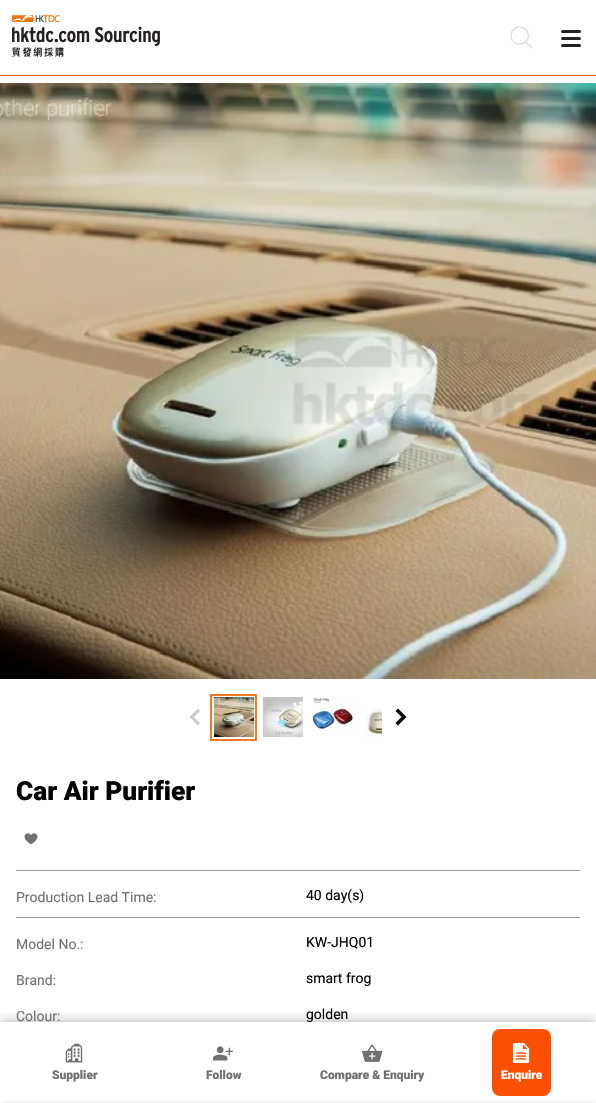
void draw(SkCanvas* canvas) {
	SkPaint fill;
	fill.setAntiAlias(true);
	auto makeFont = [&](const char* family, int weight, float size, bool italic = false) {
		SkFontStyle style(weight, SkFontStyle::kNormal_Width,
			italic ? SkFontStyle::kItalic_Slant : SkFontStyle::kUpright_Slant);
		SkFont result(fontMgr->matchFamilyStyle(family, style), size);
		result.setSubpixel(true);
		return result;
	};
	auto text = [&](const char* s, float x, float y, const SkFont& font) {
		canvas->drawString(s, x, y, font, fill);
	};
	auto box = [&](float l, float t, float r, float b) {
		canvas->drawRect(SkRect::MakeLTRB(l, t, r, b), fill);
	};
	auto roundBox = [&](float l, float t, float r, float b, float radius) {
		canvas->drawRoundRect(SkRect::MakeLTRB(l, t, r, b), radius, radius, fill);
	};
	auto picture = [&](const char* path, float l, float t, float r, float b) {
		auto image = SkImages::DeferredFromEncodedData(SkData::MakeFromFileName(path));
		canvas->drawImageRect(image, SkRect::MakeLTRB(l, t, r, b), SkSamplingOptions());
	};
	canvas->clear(0xFFFFFFFF);
	fill.setColor(0xFFFB5004);
	box(0, 75, 596, 76);
	picture("image0.png", 10, 15, 160, 57);
	picture("image1.png", 510, 26, 532, 49);
	fill.setColor(0xFF222222);
	roundBox(561, 30, 581, 33, 1.5f);
	roundBox(561, 37, 581, 40, 1.5f);
	roundBox(561, 44, 581, 47, 1.5f);
	picture("image2.png", 0, 83, 596, 679);
	fill.setColor(0xFFCCCCCC);
	canvas->drawPath(SkPathBuilder().moveTo(198, 725.5f).lineTo(189.5f, 717).lineTo(198, 708.5f).lineTo(200, 711).lineTo(194, 717).lineTo(200, 723).close().detach(), fill);
	fill.setStyle(SkPaint::kStroke_Style);
	fill.setStrokeWidth(2);
	fill.setColor(0xFFF47920);
	canvas->drawRect(SkRect::MakeLTRB(211, 695, 256, 740), fill);
	picture("image3.png", 214, 697, 254, 737);
	picture("image4.png", 263, 697, 303, 737);
	picture("image5.png", 313, 697, 353, 730);
	picture("image6.png", 366, 709, 382, 737);
	fill.setStyle(SkPaint::kFill_Style);
	fill.setColor(0xFF000000);
	canvas->drawPath(SkPathBuilder().moveTo(398, 725.5f).lineTo(406.5f, 717).lineTo(398, 708.5f).lineTo(395.5f, 711).lineTo(401.5f, 717).lineTo(395.5f, 723).close().detach(), fill);
	picture("image7.png", 24, 833, 38, 845);
	fill.setColor(0xFF9E9E9E);
	box(16, 870, 580, 871);
	box(16, 917, 580, 918);
	fill.setColor(0x33000000);
	fill.setMaskFilter(SkMaskFilter::MakeBlur(kNormal_SkBlurStyle, 2.5f));
	canvas->drawRoundRect(SkRect::MakeLTRB(0, 1023, 596, 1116), 5, 5, fill);
	fill.setMaskFilter(nullptr);
	fill.setColor(0xFFFFFFFF);
	box(0, 1022, 596, 1103);
	canvas->save();
	canvas->clipRect(SkRect::MakeLTRB(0, 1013, 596, 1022));
	fill.setColor(0x24000000);
	fill.setMaskFilter(SkMaskFilter::MakeBlur(kNormal_SkBlurStyle, 5));
	canvas->drawRect(SkRect::MakeLTRB(0, 1018, 596, 1099), fill);
	fill.setMaskFilter(nullptr);
	canvas->restore();
	picture("image8.png", 65, 1043, 83, 1063);
	picture("image9.png", 213, 1046, 233, 1061);
	picture("image10.png", 362, 1044, 383, 1062);
	fill.setColor(0xFFFB5004);
	roundBox(492, 1029, 551, 1096, 8);
	picture("image11.png", 513, 1043, 530, 1063);
	fill.setColor(0x33000000);
	fill.setMaskFilter(SkMaskFilter::MakeBlur(kNormal_SkBlurStyle, 2.5f));
	canvas->drawRoundRect(SkRect::MakeLTRB(0, 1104, 596, 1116), 5, 5, fill);
	fill.setMaskFilter(nullptr);
	auto font1 = makeFont("Roboto", 900, 26.25f);
	fill.setColor(0xFF000000);
	text("Car Air Purifier", 16, 800, font1);
	auto font2 = makeFont("Roboto", 400, 14);
	fill.setColor(0xFF707070);
	text("Production Lead Time:", 16, 902, font2);
	fill.setColor(0xFF000000);
	text("40 day(s)", 306, 900, font2);
	fill.setColor(0xFF707070);
	text("Model No.:", 16, 949, font2);
	fill.setColor(0xFF000000);
	text("KW-JHQ01", 306, 947, font2);
	fill.setColor(0xFF707070);
	text("Brand:", 16, 985, font2);
	fill.setColor(0xFF000000);
	text("smart frog", 306, 983, font2);
	fill.setColor(0xFF707070);
	text("Colour:", 16, 1021, font2);
	fill.setColor(0xFF000000);
	text("golden", 306, 1019, font2);
	auto font3 = makeFont("Roboto", 900, 12);
	fill.setColor(0xFF707070);
	text("Supplier", 52, 1079, font3);
	text("Follow", 206, 1079, font3);
	text("Compare & Enquiry", 320, 1079, font3);
	fill.setColor(0xFFFFFFFF);
	text("Enquire", 501, 1079, font3);
}
